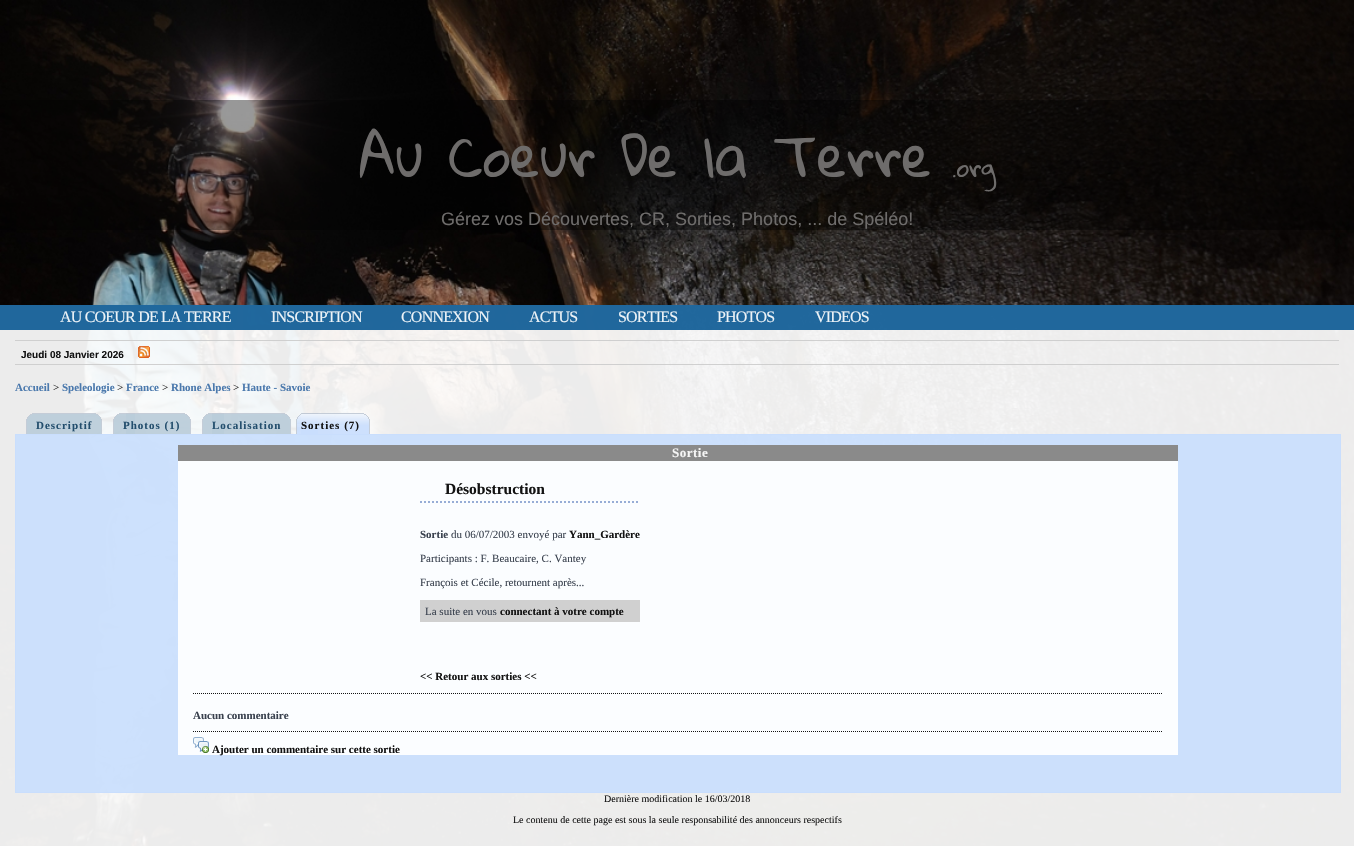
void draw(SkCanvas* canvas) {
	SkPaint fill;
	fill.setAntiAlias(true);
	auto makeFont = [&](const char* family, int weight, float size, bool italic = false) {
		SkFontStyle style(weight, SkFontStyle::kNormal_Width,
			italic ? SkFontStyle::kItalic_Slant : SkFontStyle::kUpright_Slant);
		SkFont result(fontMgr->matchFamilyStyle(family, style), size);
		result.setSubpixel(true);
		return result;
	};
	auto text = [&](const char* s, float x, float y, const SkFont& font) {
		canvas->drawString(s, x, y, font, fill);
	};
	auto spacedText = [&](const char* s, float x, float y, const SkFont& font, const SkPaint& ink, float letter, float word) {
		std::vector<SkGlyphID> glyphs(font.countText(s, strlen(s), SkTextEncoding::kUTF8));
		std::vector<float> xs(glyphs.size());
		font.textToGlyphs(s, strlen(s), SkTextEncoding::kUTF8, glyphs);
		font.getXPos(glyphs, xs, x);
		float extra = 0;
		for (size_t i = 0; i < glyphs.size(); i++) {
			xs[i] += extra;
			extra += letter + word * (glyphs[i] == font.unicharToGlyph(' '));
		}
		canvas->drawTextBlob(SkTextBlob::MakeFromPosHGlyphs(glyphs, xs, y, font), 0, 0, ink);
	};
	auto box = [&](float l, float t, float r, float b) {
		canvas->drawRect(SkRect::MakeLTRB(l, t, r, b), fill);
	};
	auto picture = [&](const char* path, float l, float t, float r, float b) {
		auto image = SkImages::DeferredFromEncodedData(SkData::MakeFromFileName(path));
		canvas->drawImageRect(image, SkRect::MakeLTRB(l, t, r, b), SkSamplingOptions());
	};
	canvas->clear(0xFFFFFFFF);
	picture("image0.png", 0, 0, 1354, 846);
	fill.setColor(0x66000000);
	box(0, 100, 1354, 230);
	fill.setColor(0xEBFFFFFF);
	box(0, 305, 1354, 846);
	fill.setColor(0xEB0E5B95);
	box(0, 305, 1354, 330);
	fill.setColor(0xEBCCCCCC);
	box(15, 340, 1339, 341);
	picture("image1.png", 138, 346, 150, 358);
	box(15, 364, 1339, 365);
	picture("image2.png", 26, 413, 48, 434);
	picture("image3.png", 48, 413, 102, 434);
	picture("image4.png", 113, 413, 135, 434);
	picture("image5.png", 126, 413, 191, 434);
	picture("image6.png", 202, 413, 224, 434);
	picture("image7.png", 212, 413, 291, 434);
	picture("image8.png", 296, 413, 318, 434);
	picture("image9.png", 301, 413, 370, 434);
	fill.setColor(0xEBC9DEFD);
	canvas->drawRect(SkRect::MakeLTRB(15.5f, 434.5f, 1340.5f, 792.5f), fill);
	fill.setStyle(SkPaint::kStroke_Style);
	fill.setStrokeWidth(1);
	fill.setColor(0xFFC9DEFD);
	canvas->drawRect(SkRect::MakeLTRB(15.5f, 434.5f, 1340.5f, 792.5f), fill);
	fill.setStyle(SkPaint::kFill_Style);
	fill.setColor(0xFFFBFDFF);
	box(178, 461, 1178, 755);
	fill.setColor(0xFF8A8A8A);
	box(178, 445, 1178, 461);
	fill.setStyle(SkPaint::kStroke_Style);
	fill.setStrokeWidth(2);
	fill.setColor(0xFF97ADD6);
	fill.setPathEffect(SkDashPathEffect::Make({{2, 2}}, 0));
	canvas->drawPath(SkPathBuilder().moveTo(420, 502).lineTo(640, 502).detach(), fill);
	fill.setPathEffect(nullptr);
	fill.setStyle(SkPaint::kFill_Style);
	fill.setColor(0xFFD0D0D0);
	box(420, 600, 640, 622);
	fill.setStyle(SkPaint::kStroke_Style);
	fill.setStrokeWidth(1);
	fill.setColor(0xFF141414);
	fill.setPathEffect(SkDashPathEffect::Make({{1, 1}}, 0));
	canvas->drawPath(SkPathBuilder().moveTo(193, 693.5f).lineTo(1163, 693.5f).detach(), fill);
	fill.setPathEffect(nullptr);
	fill.setPathEffect(SkDashPathEffect::Make({{1, 1}}, 0));
	canvas->drawPath(SkPathBuilder().moveTo(193, 731.5f).lineTo(1163, 731.5f).detach(), fill);
	fill.setPathEffect(nullptr);
	picture("image10.png", 193, 737, 209, 753);
	auto font1 = makeFont("Gloria Hallelujah", 400, 55);
	fill.setStyle(SkPaint::kFill_Style);
	fill.setColor(0xFF6E6C6B);
	text("Au Coeur De la Terre", 359, 177, font1);
	auto font2 = makeFont("Gloria Hallelujah", 400, 25);
	text(".org", 951, 177, font2);
	auto font3 = makeFont("Liberation Sans", 400, 18);
	text("Gérez vos Découvertes, CR, Sorties, Photos, ... de Spéléo!", 441, 225, font3);
	auto font4 = makeFont("Liberation Serif", 400, 16);
	fill.setColor(0xFFEDF3F7);
	spacedText("AU COEUR DE LA TERRE", 60, 322, font4, fill, -0.8f, 0);
	spacedText("INSCRIPTION", 271, 322, font4, fill, -0.8f, 0);
	spacedText("CONNEXION", 401, 322, font4, fill, -0.8f, 0);
	spacedText("ACTUS", 529, 322, font4, fill, -0.8f, 0);
	spacedText("SORTIES", 618, 322, font4, fill, -0.8f, 0);
	spacedText("PHOTOS", 717, 322, font4, fill, -0.8f, 0);
	spacedText("VIDEOS", 815, 322, font4, fill, -0.8f, 0);
	auto font5 = makeFont("Liberation Sans", 700, 10);
	fill.setColor(0xFF131313);
	text("Jeudi 08 Janvier 2026", 21, 358, font5);
	auto font6 = makeFont("Liberation Serif", 700, 11);
	fill.setColor(0xFF4B79AD);
	text("Accueil", 15, 391, font6);
	auto font7 = makeFont("Liberation Serif", 400, 11);
	fill.setColor(0xFF131313);
	text(">", 53, 391, font7);
	fill.setColor(0xFF4B79AD);
	text("Speleologie", 62, 391, font6);
	fill.setColor(0xFF131313);
	text(">", 117, 391, font7);
	fill.setColor(0xFF4B79AD);
	text("France", 126, 391, font6);
	fill.setColor(0xFF131313);
	text(">", 162, 391, font7);
	fill.setColor(0xFF4B79AD);
	text("Rhone Alpes", 171, 391, font6);
	fill.setColor(0xFF131313);
	text(">", 233, 391, font7);
	fill.setColor(0xFF4B79AD);
	text("Haute - Savoie", 242, 391, font6);
	fill.setColor(0xFF234E6D);
	spacedText("Descriptif", 36, 429, font6, fill, 1, 0);
	spacedText("Photos (1)", 123, 429, font6, fill, 1, 0);
	spacedText("Localisation", 212, 429, font6, fill, 1, 0);
	fill.setColor(0xFF131313);
	spacedText("Sorties (7)", 301, 429, font6, fill, 1, 0);
	auto font8 = makeFont("Liberation Serif", 700, 13);
	fill.setColor(0xFFF6F6F6);
	spacedText("Sortie", 672, 457, font8, fill, 0.5f, 0);
	auto font9 = makeFont("Liberation Serif", 700, 15.5f);
	fill.setColor(0xFF131313);
	text("Désobstruction", 445, 494, font9);
	fill.setColor(0xFF39414E);
	text("Sortie", 420, 538, font6);
	text("du 06/07/2003 envoyé par", 451, 538, font7);
	fill.setColor(0xFF131313);
	text("Yann_Gardère", 569, 538, font6);
	fill.setColor(0xFF39414E);
	text("Participants : F. Beaucaire, C. Vantey", 420, 562, font7);
	text("François et Cécile, retournent après...", 420, 586, font7);
	text("La suite en vous", 425, 615, font7);
	fill.setColor(0xFF131313);
	text("connectant à votre compte", 500, 615, font6);
	text("<< Retour aux sorties <<", 420, 680, font6);
	fill.setColor(0xFF39414E);
	text("Aucun commentaire", 193, 719, font6);
	fill.setColor(0xFF131313);
	text("Ajouter un commentaire sur cette sortie", 212, 753, font6);
	auto font10 = makeFont("Liberation Serif", 400, 10);
	text("Dernière modification le 16/03/2018", 604, 802, font10);
	text("Le contenu de cette page est sous la seule responsabilité des annonceurs respectifs", 513, 823, font10);
}
